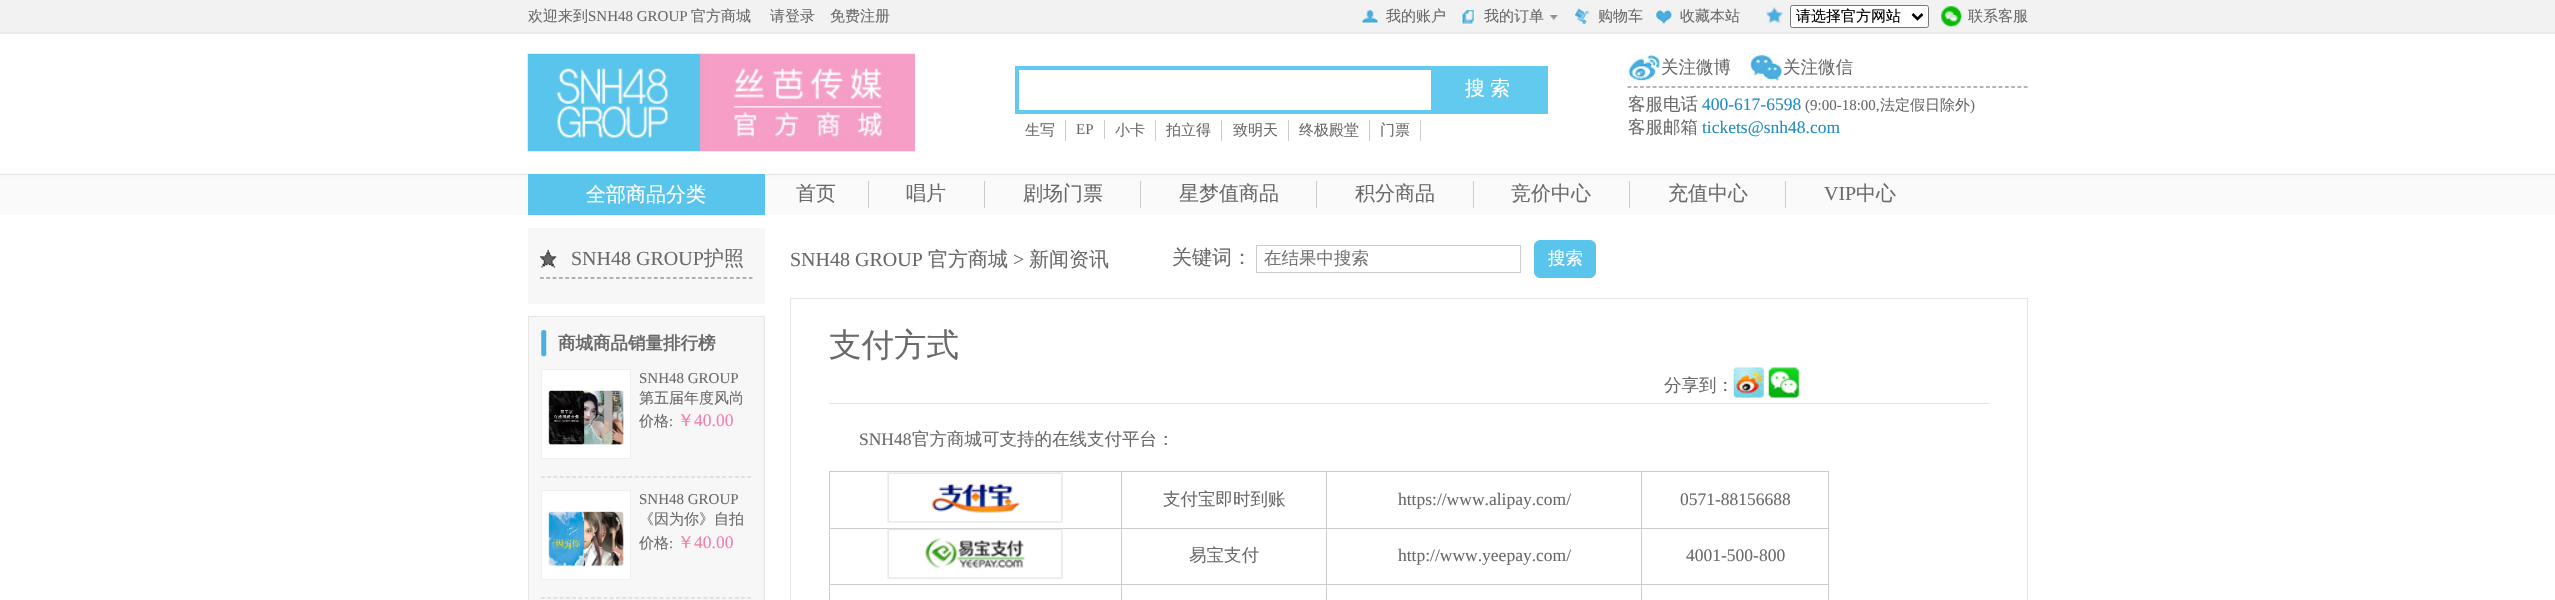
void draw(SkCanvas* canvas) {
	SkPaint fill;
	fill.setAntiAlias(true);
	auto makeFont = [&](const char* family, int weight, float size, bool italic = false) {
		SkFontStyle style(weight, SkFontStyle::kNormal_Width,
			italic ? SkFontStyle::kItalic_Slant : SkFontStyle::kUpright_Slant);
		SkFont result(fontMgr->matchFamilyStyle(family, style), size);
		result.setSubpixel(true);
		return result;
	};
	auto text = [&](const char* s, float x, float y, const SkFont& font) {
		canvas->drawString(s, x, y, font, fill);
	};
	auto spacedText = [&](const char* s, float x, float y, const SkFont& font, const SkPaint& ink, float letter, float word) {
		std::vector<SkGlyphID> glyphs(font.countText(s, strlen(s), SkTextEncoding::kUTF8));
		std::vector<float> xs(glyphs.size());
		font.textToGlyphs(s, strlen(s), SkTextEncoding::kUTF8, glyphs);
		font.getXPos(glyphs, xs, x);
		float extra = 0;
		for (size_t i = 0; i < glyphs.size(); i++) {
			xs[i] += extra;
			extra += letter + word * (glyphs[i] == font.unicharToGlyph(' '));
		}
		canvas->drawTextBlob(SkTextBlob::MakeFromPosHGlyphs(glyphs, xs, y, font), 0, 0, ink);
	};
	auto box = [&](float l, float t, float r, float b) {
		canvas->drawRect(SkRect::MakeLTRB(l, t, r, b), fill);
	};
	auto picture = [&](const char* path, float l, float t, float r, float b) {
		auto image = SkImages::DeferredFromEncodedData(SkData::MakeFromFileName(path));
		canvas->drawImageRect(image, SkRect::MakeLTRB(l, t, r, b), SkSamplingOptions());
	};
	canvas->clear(0xFFFFFFFF);
	picture("image0.png", 0, 0, 2555, 215);
	picture("image1.png", 1361, 5, 1380, 25);
	picture("image2.png", 1458, 5, 1478, 25);
	picture("image3.png", 1547, 14, 1558, 21);
	picture("image4.png", 1572, 5, 1592, 25);
	picture("image5.png", 1655, 5, 1674, 25);
	picture("image6.png", 1765, 5, 1784, 25);
	fill.setColor(0xFFFFFFFF);
	canvas->drawRoundRect(SkRect::MakeLTRB(1790.5f, 5.5f, 1928.5f, 27.5f), 2, 2, fill);
	fill.setStyle(SkPaint::kStroke_Style);
	fill.setStrokeWidth(1);
	fill.setColor(0xFF767676);
	canvas->drawRoundRect(SkRect::MakeLTRB(1790.5f, 5.5f, 1928.5f, 27.5f), 2, 2, fill);
	fill.setStrokeWidth(2.5f);
	fill.setColor(0xFF000000);
	canvas->drawPath(SkPathBuilder().moveTo(1912.5f, 14).lineTo(1917.5f, 19).lineTo(1922.5f, 14).detach(), fill);
	picture("image7.png", 1941, 6, 1962, 27);
	picture("image8.png", 527, 53, 915, 152);
	fill.setStyle(SkPaint::kFill_Style);
	fill.setColor(0xFF62CAEE);
	box(1015, 66, 1548, 114);
	fill.setColor(0xFFFFFFFF);
	box(1019, 70, 1431, 110);
	fill.setColor(0xFFCCCCCC);
	box(1065, 120, 1066, 141);
	box(1104, 120, 1105, 139);
	box(1155, 120, 1156, 141);
	box(1221, 120, 1222, 141);
	box(1288, 120, 1289, 141);
	box(1369, 120, 1370, 141);
	box(1420, 120, 1421, 141);
	picture("image9.png", 1627, 53, 1661, 81);
	picture("image10.png", 1748, 53, 1783, 81);
	fill.setStyle(SkPaint::kStroke_Style);
	fill.setStrokeWidth(1.2f);
	fill.setColor(0xFF6A6A6A);
	fill.setPathEffect(SkDashPathEffect::Make({{3.75f, 2.54f}}, 0));
	canvas->drawPath(SkPathBuilder().moveTo(1627.5f, 87).lineTo(2027.5f, 87).detach(), fill);
	fill.setPathEffect(nullptr);
	fill.setStyle(SkPaint::kFill_Style);
	fill.setColor(0xFF59C4EC);
	box(528, 174, 765, 215);
	fill.setColor(0xFFCCCCCC);
	box(868, 181, 869, 208);
	box(984, 181, 985, 208);
	box(1140, 181, 1141, 208);
	box(1316, 181, 1317, 208);
	box(1473, 181, 1474, 208);
	box(1629, 181, 1630, 208);
	box(1785, 181, 1786, 208);
	fill.setColor(0xFFF7F7F7);
	box(528, 228, 765, 304);
	picture("image11.png", 540, 249, 557, 268);
	fill.setStyle(SkPaint::kStroke_Style);
	fill.setColor(0xFF6A6A6A);
	fill.setPathEffect(SkDashPathEffect::Make({{3.75f, 2.58f}}, 0));
	canvas->drawPath(SkPathBuilder().moveTo(540, 278).lineTo(752.5f, 278).detach(), fill);
	fill.setPathEffect(nullptr);
	fill.setStyle(SkPaint::kFill_Style);
	fill.setColor(0xFFF7F7F7);
	canvas->drawRect(SkRect::MakeLTRB(528.5f, 316.5f, 764.5f, 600.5f), fill);
	fill.setStyle(SkPaint::kStroke_Style);
	fill.setStrokeWidth(1);
	fill.setColor(0xFFE6E6E6);
	canvas->drawRect(SkRect::MakeLTRB(528.5f, 316.5f, 764.5f, 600.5f), fill);
	picture("image12.png", 541, 330, 547, 357);
	fill.setStrokeWidth(1.2f);
	fill.setColor(0xFFCBCBCB);
	fill.setPathEffect(SkDashPathEffect::Make({{3.75f, 2.5f}}, 0));
	canvas->drawPath(SkPathBuilder().moveTo(541, 477).lineTo(751, 477).detach(), fill);
	fill.setPathEffect(nullptr);
	fill.setStyle(SkPaint::kFill_Style);
	fill.setColor(0xFFFFFFFF);
	canvas->drawRect(SkRect::MakeLTRB(541.5f, 369.5f, 630.5f, 458.5f), fill);
	fill.setStyle(SkPaint::kStroke_Style);
	fill.setStrokeWidth(1);
	fill.setColor(0xFFEFEFEF);
	canvas->drawRect(SkRect::MakeLTRB(541.5f, 369.5f, 630.5f, 458.5f), fill);
	picture("image13.png", 548, 390, 624, 445);
	fill.setStrokeWidth(1.2f);
	fill.setColor(0xFFCBCBCB);
	fill.setPathEffect(SkDashPathEffect::Make({{3.75f, 2.5f}}, 0));
	canvas->drawPath(SkPathBuilder().moveTo(541, 598).lineTo(751, 598).detach(), fill);
	fill.setPathEffect(nullptr);
	fill.setStyle(SkPaint::kFill_Style);
	fill.setColor(0xFFFFFFFF);
	canvas->drawRect(SkRect::MakeLTRB(541.5f, 490.5f, 630.5f, 579.5f), fill);
	fill.setStyle(SkPaint::kStroke_Style);
	fill.setStrokeWidth(1);
	fill.setColor(0xFFEFEFEF);
	canvas->drawRect(SkRect::MakeLTRB(541.5f, 490.5f, 630.5f, 579.5f), fill);
	picture("image14.png", 548, 511, 624, 567);
	fill.setColor(0xFFCCCCCC);
	canvas->drawRect(SkRect::MakeLTRB(1256.5f, 245.5f, 1520.5f, 272.5f), fill);
	fill.setStyle(SkPaint::kFill_Style);
	fill.setColor(0xFF59C4EC);
	canvas->drawRoundRect(SkRect::MakeLTRB(1534.5f, 240.5f, 1595.5f, 277.5f), 5.5f, 5.5f, fill);
	fill.setStyle(SkPaint::kStroke_Style);
	canvas->drawRoundRect(SkRect::MakeLTRB(1534.5f, 240.5f, 1595.5f, 277.5f), 5.5f, 5.5f, fill);
	fill.setColor(0xFFE5E5E5);
	canvas->drawRect(SkRect::MakeLTRB(790.5f, 298.5f, 2027.5f, 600.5f), fill);
	fill.setStyle(SkPaint::kFill_Style);
	box(829, 403, 1989, 404);
	picture("image15.png", 1733, 367, 1764, 398);
	picture("image16.png", 1768, 367, 1799, 398);
	fill.setColor(0xFFCCCCCC);
	box(1641, 471, 1829, 472);
	box(1641, 528, 1829, 529);
	box(1641, 584, 1829, 585);
	box(1641, 584, 1642, 600);
	box(1326, 584, 1643, 585);
	box(1641, 528, 1642, 585);
	box(1326, 528, 1643, 529);
	box(1641, 471, 1642, 529);
	box(1326, 471, 1643, 472);
	box(1326, 584, 1327, 600);
	box(1121, 584, 1328, 585);
	box(1326, 528, 1327, 585);
	box(1121, 528, 1328, 529);
	box(1326, 471, 1327, 529);
	box(1121, 471, 1328, 472);
	box(1121, 584, 1122, 600);
	box(829, 584, 1123, 585);
	box(1121, 528, 1122, 585);
	box(829, 528, 1123, 529);
	box(1121, 471, 1122, 529);
	box(829, 471, 1123, 472);
	box(829, 584, 830, 600);
	box(829, 528, 830, 585);
	box(829, 471, 830, 529);
	picture("image17.png", 887, 472, 1063, 523);
	box(1828, 584, 1829, 600);
	box(1828, 528, 1829, 585);
	box(1828, 471, 1829, 529);
	picture("image18.png", 887, 528, 1063, 579);
	auto font1 = makeFont("WenQuanYi Zen Hei", 500, 15);
	fill.setColor(0xFF6A6A6A);
	text("欢迎来到", 528, 21, font1);
	auto font2 = makeFont("Liberation Serif", 400, 15);
	text("SNH48 GROUP", 588, 21, font2);
	text("官方商城", 691, 21, font1);
	text("请登录", 770, 21, font1);
	text("免费注册", 830, 21, font1);
	text("我的账户", 1386, 21, font1);
	text("我的订单", 1484, 21, font1);
	text("购物车", 1598, 21, font1);
	text("收藏本站", 1680, 21, font1);
	fill.setColor(0xFF000000);
	text("请选择官方网站", 1796, 21, font1);
	fill.setColor(0xFF6A6A6A);
	text("联系客服", 1968, 21, font1);
	auto font3 = makeFont("WenQuanYi Zen Hei", 500, 20);
	fill.setColor(0xFFFFFFFF);
	spacedText("搜 索", 1465, 95, font3, fill, 0, -1);
	fill.setColor(0xFF6A6A6A);
	text("生写", 1025, 135, font1);
	text("EP", 1076, 134, font2);
	text("小卡", 1115, 135, font1);
	text("拍立得", 1166, 135, font1);
	text("致明天", 1233, 135, font1);
	text("终极殿堂", 1299, 135, font1);
	text("门票", 1380, 135, font1);
	auto font4 = makeFont("WenQuanYi Zen Hei", 500, 17.5f);
	text("关注微博", 1661, 73, font4);
	text("关注微信", 1783, 73, font4);
	text("客服电话", 1628, 110, font4);
	auto font5 = makeFont("Liberation Serif", 400, 17.5f);
	fill.setColor(0xFF228DC3);
	text("400-617-6598", 1702, 110, font5);
	fill.setColor(0xFF6A6A6A);
	text("(9:00-18:00,", 1805, 110, font2);
	text("法定假日除外", 1880, 110, font1);
	text(")", 1970, 110, font2);
	text("客服邮箱", 1628, 133, font4);
	fill.setColor(0xFF228DC3);
	text("tickets@snh48.com", 1702, 133, font5);
	fill.setColor(0xFFFFFFFF);
	text("全部商品分类", 586, 201, font3);
	fill.setColor(0xFF6A6A6A);
	text("首页", 796, 200, font3);
	text("唱片", 906, 200, font3);
	text("剧场门票", 1023, 200, font3);
	text("星梦值商品", 1179, 200, font3);
	text("积分商品", 1355, 200, font3);
	text("竞价中心", 1511, 200, font3);
	text("充值中心", 1668, 200, font3);
	auto font6 = makeFont("Liberation Serif", 400, 20);
	text("VIP", 1824, 200, font6);
	text("中心", 1856, 200, font3);
	text("SNH48 GROUP", 571, 265, font6);
	text("护照", 704, 265, font3);
	auto font7 = makeFont("WenQuanYi Zen Hei", 700, 17.5f);
	text("商城商品销量排行榜", 558, 349, font7);
	text("SNH48 GROUP", 639, 383, font2);
	text("第五届年度风尚", 639, 403, font1);
	text("价格", 639, 426, font1);
	text(":", 669, 426, font2);
	fill.setColor(0xFFF17FB0);
	text("￥", 677, 426, font4);
	text("40.00", 694, 426, font5);
	fill.setColor(0xFF6A6A6A);
	text("SNH48 GROUP", 639, 504, font2);
	text("《因为你》自拍", 639, 524, font1);
	text("价格", 639, 548, font1);
	text(":", 669, 548, font2);
	fill.setColor(0xFFF17FB0);
	text("￥", 677, 548, font4);
	text("40.00", 694, 548, font5);
	fill.setColor(0xFF6A6A6A);
	text("SNH48 GROUP", 790, 266, font6);
	text("官方商城", 928, 266, font3);
	text(">", 1013, 266, font6);
	text("新闻资讯", 1029, 266, font3);
	text("关键词：", 1172, 264, font3);
	fill.setColor(0xFF757575);
	text("在结果中搜索", 1264, 264, font4);
	fill.setColor(0xFFFFFFFF);
	text("搜索", 1548, 264, font4);
	auto font8 = makeFont("WenQuanYi Zen Hei", 500, 32.5f);
	fill.setColor(0xFF6A6A6A);
	text("支付方式", 829, 356, font8);
	text("分享到：", 1664, 391, font4);
	text("SNH48", 859, 445, font5);
	text("官方商城可支持的在线支付平台：", 912, 445, font4);
	text("支付宝即时到账", 1163, 505, font4);
	text("https://www.alipay.com/", 1398, 505, font5);
	text("0571-88156688", 1680, 505, font5);
	text("易宝支付", 1189, 561, font4);
	text("http://www.yeepay.com/", 1398, 561, font5);
	text("4001-500-800", 1686, 561, font5);
}
